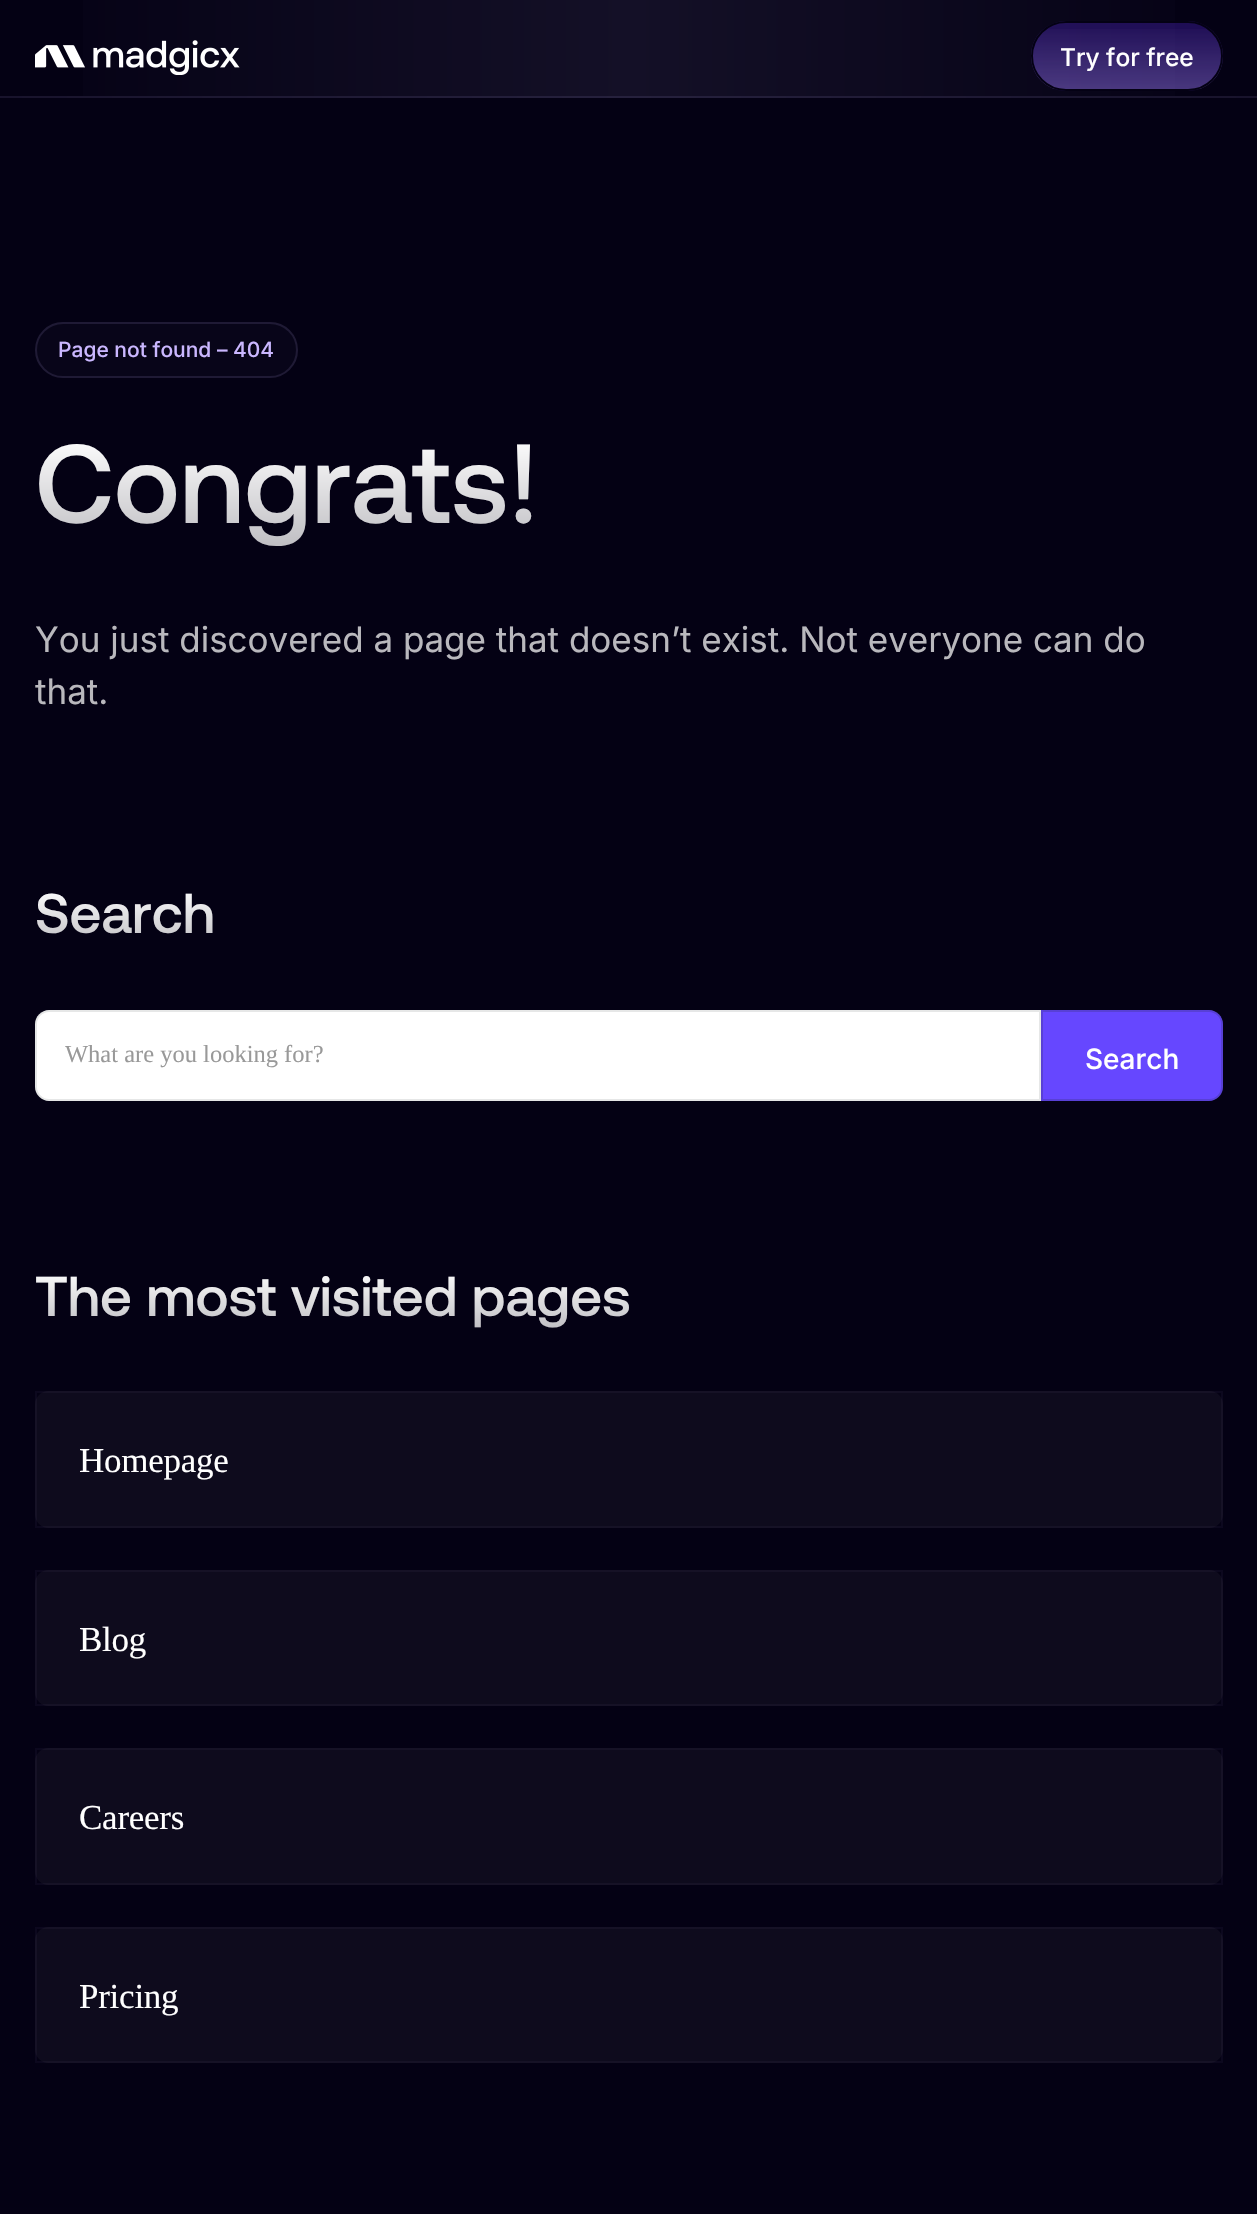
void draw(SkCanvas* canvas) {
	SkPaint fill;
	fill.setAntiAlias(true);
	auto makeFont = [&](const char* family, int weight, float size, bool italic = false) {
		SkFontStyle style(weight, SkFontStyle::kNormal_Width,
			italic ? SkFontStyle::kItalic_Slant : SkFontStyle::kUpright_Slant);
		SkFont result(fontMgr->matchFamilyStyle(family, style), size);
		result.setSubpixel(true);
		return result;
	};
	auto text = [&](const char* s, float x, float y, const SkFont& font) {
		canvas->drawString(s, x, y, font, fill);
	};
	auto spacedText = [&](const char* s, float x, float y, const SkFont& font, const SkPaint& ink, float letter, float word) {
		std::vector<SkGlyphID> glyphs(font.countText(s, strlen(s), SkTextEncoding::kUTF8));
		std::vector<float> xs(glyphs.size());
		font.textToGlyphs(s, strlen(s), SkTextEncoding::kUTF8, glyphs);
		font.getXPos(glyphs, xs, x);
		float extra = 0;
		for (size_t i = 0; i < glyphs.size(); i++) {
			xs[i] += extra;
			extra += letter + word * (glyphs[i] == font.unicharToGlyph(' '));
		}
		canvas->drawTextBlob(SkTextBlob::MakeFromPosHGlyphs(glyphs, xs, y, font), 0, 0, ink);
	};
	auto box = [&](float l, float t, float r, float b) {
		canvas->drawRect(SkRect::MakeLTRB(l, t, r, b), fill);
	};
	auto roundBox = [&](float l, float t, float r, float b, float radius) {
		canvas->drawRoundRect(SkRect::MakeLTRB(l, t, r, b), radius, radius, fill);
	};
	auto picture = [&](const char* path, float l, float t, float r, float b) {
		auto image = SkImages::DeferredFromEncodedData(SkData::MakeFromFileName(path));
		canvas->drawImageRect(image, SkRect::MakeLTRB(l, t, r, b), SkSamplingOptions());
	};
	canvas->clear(0xFF040114);
	{
		const SkColor colors[] = {0xFF040114, 0xFF141027, 0xFF040114};
		const float stops[] = {0, 0.5f, 1};
		const SkPoint ends[] = {{0, 48}, {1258, 48}};
		fill.setShader(SkGradientShader::MakeLinear(ends, colors, stops, 3, SkTileMode::kClamp));
		fill.setAlpha(255);
	}
	box(83, 0, 1175, 96);
	{
		const SkColor colors[] = {0xFF18132C, 0xFF26213D, 0xFF18132C};
		const float stops[] = {0, 0.5f, 1};
		const SkPoint ends[] = {{0, 48}, {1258, 48}};
		fill.setShader(SkGradientShader::MakeLinear(ends, colors, stops, 3, SkTileMode::kClamp));
		fill.setAlpha(255);
	}
	box(0, 96, 1257, 98);
	picture("image0.png", 35, 40, 240, 75);
	fill.setShader(nullptr);
	fill.setColor(0x525525DA);
	roundBox(1031, 21, 1223, 91, 35);
	canvas->save();
	canvas->clipPath(SkPathBuilder().moveTo(1066, 21).lineTo(1188, 21).cubicTo(1207.5f, 21, 1223, 36.5f, 1223, 56).cubicTo(1223, 75.5f, 1207.5f, 91, 1188, 91).lineTo(1066, 91).cubicTo(1046.5f, 91, 1031, 75.5f, 1031, 56).cubicTo(1031, 36.5f, 1046.5f, 21, 1066, 21).close().detach(), true);
	{
		const SkColor colors[] = {0x00CAB7FF, 0x3DCAB7FF};
		const float stops[] = {0, 1};
		const SkPoint ends[] = {{1127, 23}, {1127, 89}};
		fill.setShader(SkGradientShader::MakeLinear(ends, colors, stops, 2, SkTileMode::kClamp));
		fill.setAlpha(255);
	}
	box(1031, 29, 1223, 89);
	canvas->restore();
	fill.setStyle(SkPaint::kStroke_Style);
	fill.setStrokeWidth(2);
	fill.setShader(nullptr);
	fill.setColor(0xFF040114);
	canvas->drawRoundRect(SkRect::MakeLTRB(1032, 22, 1222, 90), 34, 34, fill);
	fill.setStyle(SkPaint::kFill_Style);
	fill.setColor(0xFF080519);
	canvas->drawRoundRect(SkRect::MakeLTRB(36, 323, 297, 377), 27, 27, fill);
	fill.setStyle(SkPaint::kStroke_Style);
	fill.setColor(0xFF1F1A35);
	canvas->drawRoundRect(SkRect::MakeLTRB(36, 323, 297, 377), 27, 27, fill);
	fill.setStyle(SkPaint::kFill_Style);
	fill.setColor(0xFFFFFFFF);
	canvas->drawPath(SkPathBuilder().moveTo(49, 1010).lineTo(1041, 1010).lineTo(1041, 1101).lineTo(49, 1101).cubicTo(41.5f, 1101, 35, 1094.5f, 35, 1087).lineTo(35, 1024).cubicTo(35, 1016.5f, 41.5f, 1010, 49, 1010).close().detach(), fill);
	fill.setStyle(SkPaint::kStroke_Style);
	fill.setColor(0x1A0E1016);
	canvas->drawPath(SkPathBuilder().moveTo(49, 1011).lineTo(1040, 1011).lineTo(1040, 1100).lineTo(49, 1100).cubicTo(42, 1100, 36, 1094, 36, 1087).lineTo(36, 1024).cubicTo(36, 1017, 42, 1011, 49, 1011).close().detach(), fill);
	fill.setStyle(SkPaint::kFill_Style);
	fill.setColor(0xFF6647FF);
	canvas->drawPath(SkPathBuilder().moveTo(1041, 1010).lineTo(1209, 1010).cubicTo(1216.5f, 1010, 1223, 1016.5f, 1223, 1024).lineTo(1223, 1087).cubicTo(1223, 1094.5f, 1216.5f, 1101, 1209, 1101).lineTo(1041, 1101).close().detach(), fill);
	fill.setStyle(SkPaint::kStroke_Style);
	fill.setColor(0x331F2430);
	canvas->drawPath(SkPathBuilder().moveTo(1042, 1011).lineTo(1209, 1011).cubicTo(1216, 1011, 1222, 1017, 1222, 1024).lineTo(1222, 1087).cubicTo(1222, 1094, 1216, 1100, 1209, 1100).lineTo(1042, 1100).close().detach(), fill);
	fill.setStyle(SkPaint::kFill_Style);
	fill.setColor(0xFF0E0B1D);
	roundBox(35, 1391, 1223, 1528, 14);
	fill.setStyle(SkPaint::kStroke_Style);
	fill.setColor(0x0ACAB7FF);
	canvas->drawRect(SkRect::MakeLTRB(36, 1392, 1222, 1527), fill);
	fill.setStyle(SkPaint::kFill_Style);
	fill.setColor(0xFF0E0B1D);
	roundBox(35, 1570, 1223, 1706, 14);
	fill.setStyle(SkPaint::kStroke_Style);
	fill.setColor(0x0ACAB7FF);
	canvas->drawRect(SkRect::MakeLTRB(36, 1571, 1222, 1705), fill);
	fill.setStyle(SkPaint::kFill_Style);
	fill.setColor(0xFF0E0B1D);
	roundBox(35, 1748, 1223, 1885, 14);
	fill.setStyle(SkPaint::kStroke_Style);
	fill.setColor(0x0ACAB7FF);
	canvas->drawRect(SkRect::MakeLTRB(36, 1749, 1222, 1884), fill);
	fill.setStyle(SkPaint::kFill_Style);
	fill.setColor(0xFF0E0B1D);
	roundBox(35, 1927, 1223, 2063, 14);
	fill.setStyle(SkPaint::kStroke_Style);
	fill.setColor(0x0ACAB7FF);
	canvas->drawRect(SkRect::MakeLTRB(36, 1928, 1222, 2062), fill);
	canvas->save();
	canvas->clipRect(SkRect::MakeLTRB(1061, 40, 1194, 72));
	auto font1 = makeFont("Inter", 500, 24.5f);
	fill.setStyle(SkPaint::kFill_Style);
	fill.setColor(0xFFFFFFFF);
	text("Try for free", 1060, 66, font1);
	canvas->restore();
	auto font2 = makeFont("Inter", 500, 21);
	fill.setColor(0xFFCAB7FF);
	text("Page not found – 404", 58, 357, font2);
	auto font3 = makeFont("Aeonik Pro", 500, 112);
	{
		const SkColor colors[] = {0xFFFFFFFF, 0xFFB9B8BD};
		const float stops[] = {0, 1};
		const SkPoint ends[] = {{287, 434}, {287, 557}};
		fill.setShader(SkGradientShader::MakeLinear(ends, colors, stops, 2, SkTileMode::kClamp));
		fill.setAlpha(255);
	}
	text("Congrats!", 35, 523, font3);
	auto font4 = makeFont("Inter", 400, 35);
	fill.setShader(nullptr);
	fill.setColor(0xFFB9B8BD);
	text("You just discovered a page that doesn’t exist. Not everyone can do", 35, 652, font4);
	text("that.", 35, 704, font4);
	auto font5 = makeFont("Aeonik Pro", 500, 56);
	{
		const SkColor colors[] = {0xFFFFFFFF, 0xFFB9B8BD};
		const float stops[] = {0, 1};
		const SkPoint ends[] = {{629, 886}, {629, 953}};
		fill.setShader(SkGradientShader::MakeLinear(ends, colors, stops, 2, SkTileMode::kClamp));
		fill.setAlpha(255);
	}
	text("Search", 35, 933, font5);
	auto font6 = makeFont("Liberation Serif", 400, 24.5f);
	fill.setShader(nullptr);
	fill.setColor(0xFF999999);
	text("What are you looking for?", 65, 1062, font6);
	auto font7 = makeFont("Inter", 500, 28);
	fill.setColor(0xFFFFFFFF);
	text("Search", 1085, 1069, font7);
	{
		const SkColor colors[] = {0xFFFFFFFF, 0xFFB9B8BD};
		const float stops[] = {0, 1};
		const SkPoint ends[] = {{629, 1268}, {629, 1336}};
		fill.setShader(SkGradientShader::MakeLinear(ends, colors, stops, 2, SkTileMode::kClamp));
		fill.setAlpha(255);
	}
	text("The most visited pages", 35, 1316, font5);
	auto font8 = makeFont("Liberation Serif", 400, 35);
	fill.setShader(nullptr);
	fill.setColor(0xFFFFFFFF);
	spacedText("Homepage", 79, 1472, font8, fill, -0.25f, 0);
	spacedText("Blog", 79, 1651, font8, fill, -0.25f, 0);
	spacedText("Careers", 79, 1829, font8, fill, -0.25f, 0);
	spacedText("Pricing", 79, 2008, font8, fill, -0.25f, 0);
}
